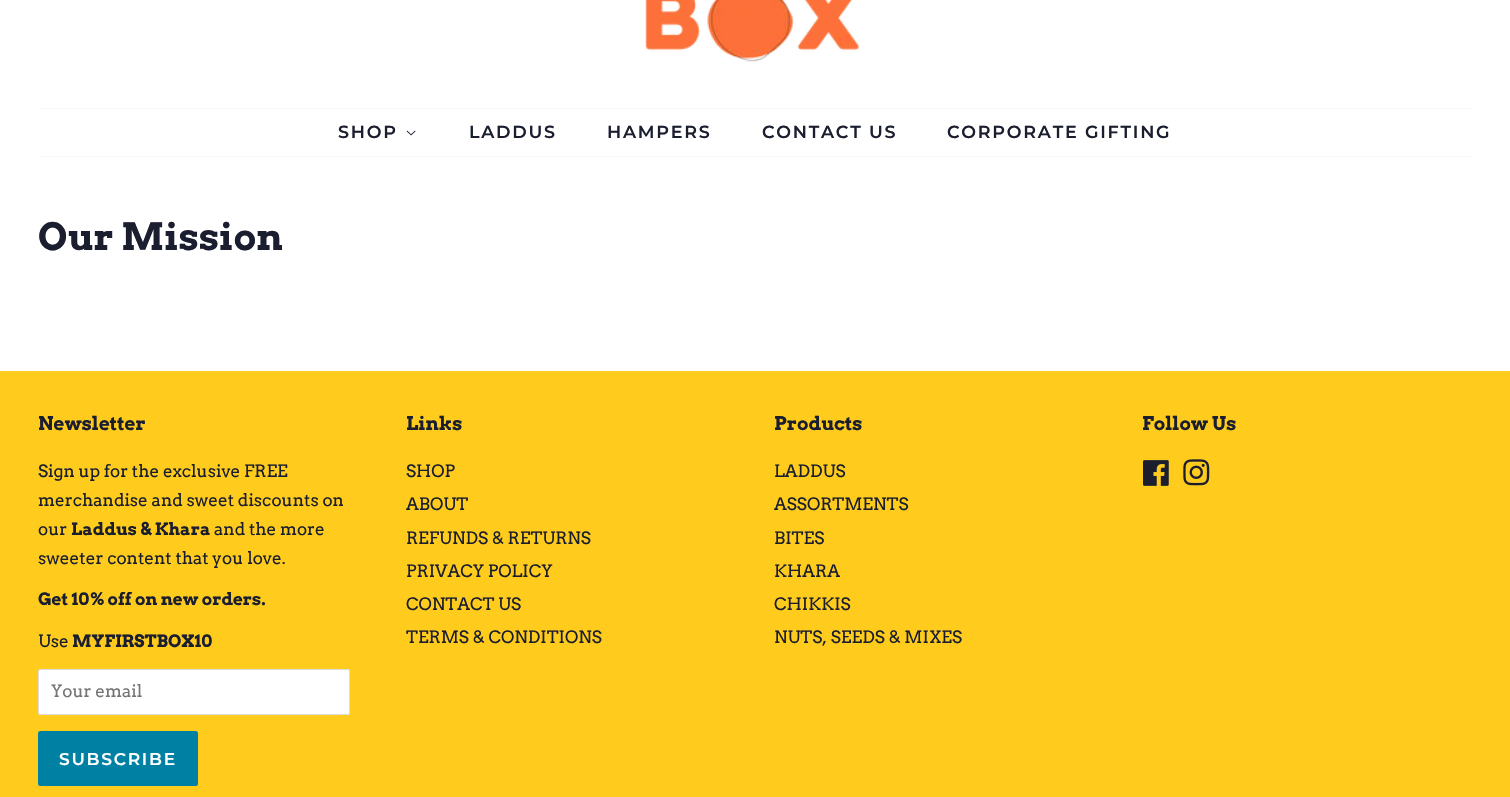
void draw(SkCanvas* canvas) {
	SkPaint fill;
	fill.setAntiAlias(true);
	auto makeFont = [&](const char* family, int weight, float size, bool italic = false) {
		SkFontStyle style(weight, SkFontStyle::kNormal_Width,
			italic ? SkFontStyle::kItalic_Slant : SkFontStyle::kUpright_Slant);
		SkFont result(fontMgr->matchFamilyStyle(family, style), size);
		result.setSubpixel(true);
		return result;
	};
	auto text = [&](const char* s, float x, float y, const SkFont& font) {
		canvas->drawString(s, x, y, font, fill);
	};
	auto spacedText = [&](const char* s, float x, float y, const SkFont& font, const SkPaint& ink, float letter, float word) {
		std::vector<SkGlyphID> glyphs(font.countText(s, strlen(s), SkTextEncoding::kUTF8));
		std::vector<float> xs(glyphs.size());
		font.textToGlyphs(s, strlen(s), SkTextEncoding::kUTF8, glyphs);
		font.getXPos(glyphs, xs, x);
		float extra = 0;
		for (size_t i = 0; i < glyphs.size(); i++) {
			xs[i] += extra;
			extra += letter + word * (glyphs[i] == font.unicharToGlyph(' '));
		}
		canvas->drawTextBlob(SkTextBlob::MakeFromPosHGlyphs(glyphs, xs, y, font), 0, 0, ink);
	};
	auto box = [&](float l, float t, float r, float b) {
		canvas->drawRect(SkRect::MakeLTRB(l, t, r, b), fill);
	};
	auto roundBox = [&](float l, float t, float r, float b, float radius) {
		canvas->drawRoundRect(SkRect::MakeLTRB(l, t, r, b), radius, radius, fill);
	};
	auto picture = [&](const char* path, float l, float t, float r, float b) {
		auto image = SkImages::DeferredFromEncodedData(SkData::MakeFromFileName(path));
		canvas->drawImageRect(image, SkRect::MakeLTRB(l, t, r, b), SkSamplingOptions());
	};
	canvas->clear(0xFFFFFFFF);
	picture("image0.png", 645, 0, 859, 62);
	fill.setColor(0xFFFAF9F7);
	box(38, 108, 1473, 109);
	box(38, 156, 1473, 157);
	picture("image1.png", 406, 130, 416, 136);
	fill.setColor(0xFFFFCC1D);
	box(0, 371, 1510, 797);
	fill.setColor(0xFFFFFFFF);
	roundBox(38, 669, 350, 715, 2.5f);
	fill.setStyle(SkPaint::kStroke_Style);
	fill.setStrokeWidth(1);
	fill.setColor(0x261B1E2F);
	canvas->drawRoundRect(SkRect::MakeLTRB(38.5f, 669.5f, 349.5f, 714.5f), 2, 2, fill);
	fill.setStyle(SkPaint::kFill_Style);
	fill.setColor(0xFF0081A3);
	roundBox(38, 731, 198, 786, 2.5f);
	picture("image2.png", 1143, 460, 1169, 486);
	picture("image3.png", 1183, 459, 1210, 486);
	auto font1 = makeFont("Montserrat", 600, 17.5f);
	fill.setColor(0xFF1B1E2F);
	spacedText("SHOP", 338, 138, font1, fill, 1.75f, 0);
	spacedText("LADDUS", 469, 138, font1, fill, 1.75f, 0);
	spacedText("HAMPERS", 607, 138, font1, fill, 1.75f, 0);
	spacedText("CONTACT US", 762, 138, font1, fill, 1.75f, 0);
	spacedText("CORPORATE GIFTING", 947, 138, font1, fill, 1.75f, 0);
	auto font2 = makeFont("Arvo", 700, 37.5f);
	text("Our Mission", 38, 250, font2);
	auto font3 = makeFont("Arvo", 700, 18.75f);
	text("Newsletter", 38, 430, font3);
	auto font4 = makeFont("Arvo", 400, 17);
	text("Sign up for the exclusive FREE", 38, 477, font4);
	text("merchandise and sweet discounts on", 38, 506, font4);
	text("our", 38, 535, font4);
	auto font5 = makeFont("Arvo", 700, 17);
	text("Laddus & Khara", 71, 535, font5);
	text("and the more", 214, 535, font4);
	text("sweeter content that you love.", 38, 564, font4);
	text("Get 10% off on new orders.", 38, 605, font5);
	text("Use", 38, 647, font4);
	text("MYFIRSTBOX10", 72, 647, font5);
	fill.setColor(0xFF757575);
	text("Your email", 51, 697, font4);
	auto font6 = makeFont("Montserrat", 600, 17);
	fill.setColor(0xFFFFFFFF);
	spacedText("SUBSCRIBE", 59, 765, font6, fill, 1.75f, 0);
	fill.setColor(0xFF1B1E2F);
	text("Links", 406, 430, font3);
	text("SHOP", 406, 477, font4);
	text("ABOUT", 406, 510, font4);
	text("REFUNDS & RETURNS", 406, 544, font4);
	text("PRIVACY POLICY", 406, 577, font4);
	text("CONTACT US", 406, 610, font4);
	text("TERMS & CONDITIONS", 406, 643, font4);
	text("Products", 774, 430, font3);
	text("LADDUS", 774, 477, font4);
	text("ASSORTMENTS", 774, 510, font4);
	text("BITES", 774, 544, font4);
	text("KHARA", 774, 577, font4);
	text("CHIKKIS", 774, 610, font4);
	text("NUTS, SEEDS & MIXES", 774, 643, font4);
	text("Follow Us", 1142, 430, font3);
}
